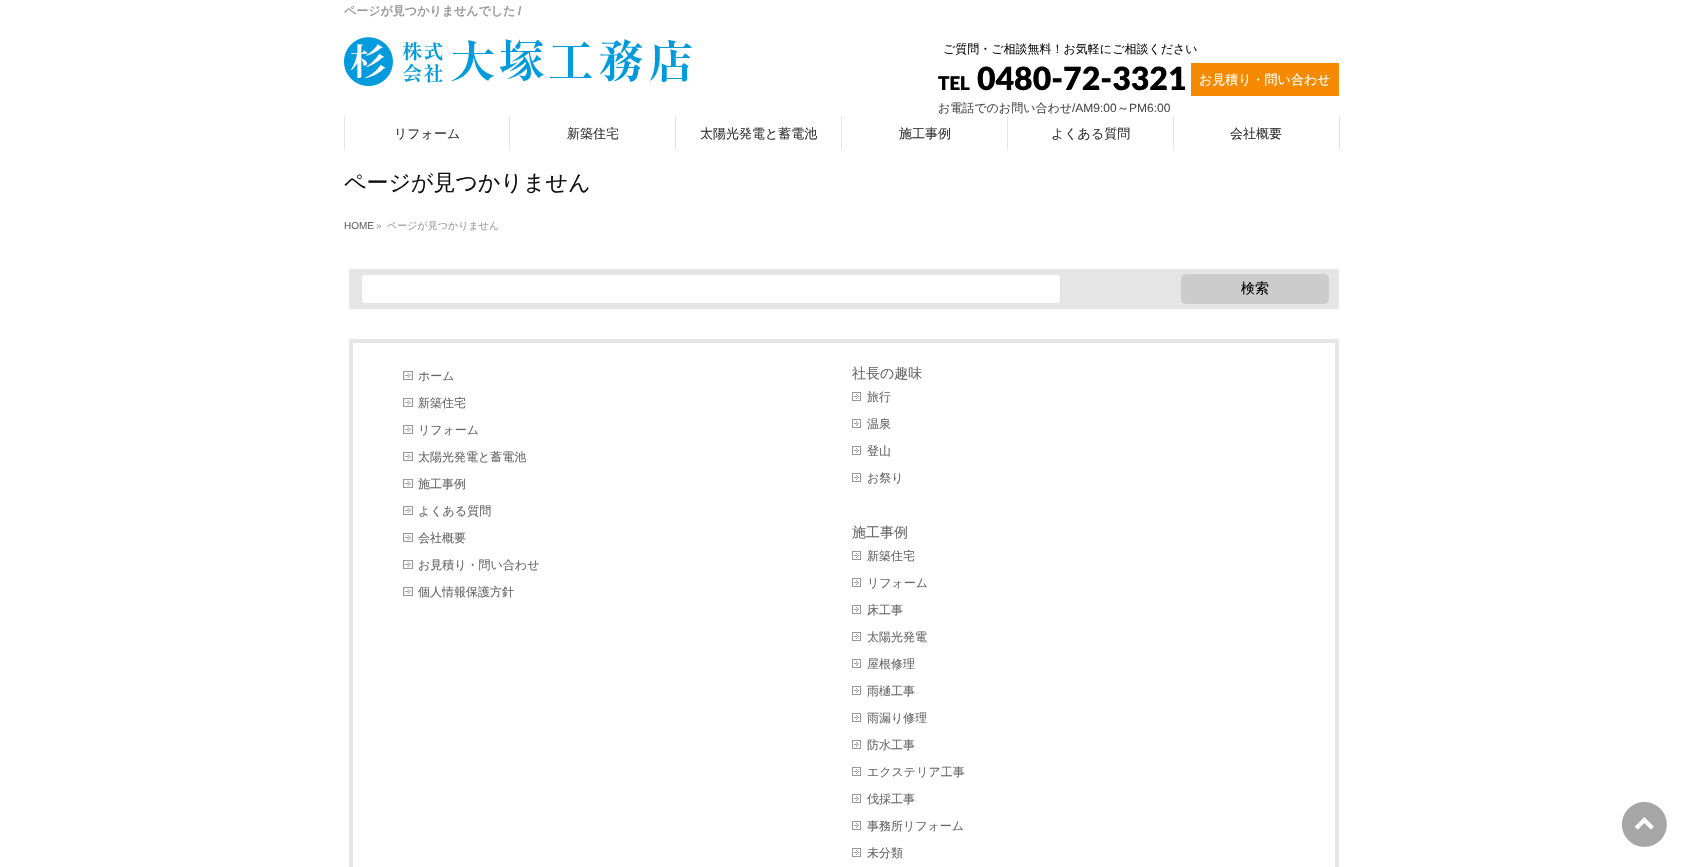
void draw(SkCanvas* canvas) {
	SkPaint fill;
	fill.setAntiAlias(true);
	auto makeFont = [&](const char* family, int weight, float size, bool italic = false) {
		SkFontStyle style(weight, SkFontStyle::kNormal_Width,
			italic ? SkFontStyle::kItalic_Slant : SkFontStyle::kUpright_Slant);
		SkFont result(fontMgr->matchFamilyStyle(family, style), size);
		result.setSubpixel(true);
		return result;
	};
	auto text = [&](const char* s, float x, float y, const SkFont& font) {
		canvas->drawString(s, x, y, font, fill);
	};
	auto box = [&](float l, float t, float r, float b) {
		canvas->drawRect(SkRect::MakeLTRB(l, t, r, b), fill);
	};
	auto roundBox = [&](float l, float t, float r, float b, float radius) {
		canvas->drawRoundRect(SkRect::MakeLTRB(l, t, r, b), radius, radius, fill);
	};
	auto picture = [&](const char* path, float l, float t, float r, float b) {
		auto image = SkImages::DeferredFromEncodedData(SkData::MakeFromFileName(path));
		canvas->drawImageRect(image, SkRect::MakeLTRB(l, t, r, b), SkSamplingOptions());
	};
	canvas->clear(0xFFFFFFFF);
	picture("image0.png", 344, 37, 692, 86);
	fill.setColor(0xFFF58A00);
	box(1191, 63, 1339, 96);
	fill.setColor(0xFFE5E5E5);
	box(344, 116, 345, 150);
	box(509, 116, 510, 150);
	box(675, 116, 676, 150);
	box(841, 116, 842, 150);
	box(1007, 116, 1008, 150);
	box(1173, 116, 1174, 150);
	box(1339, 116, 1340, 150);
	box(349, 269, 1339, 309);
	fill.setColor(0xFFFFFFFF);
	canvas->drawRoundRect(SkRect::MakeLTRB(361.5f, 274.5f, 1060.5f, 303.5f), 3.5f, 3.5f, fill);
	fill.setStyle(SkPaint::kStroke_Style);
	fill.setStrokeWidth(1);
	fill.setColor(0xFFE5E5E5);
	canvas->drawRoundRect(SkRect::MakeLTRB(361.5f, 274.5f, 1060.5f, 303.5f), 3.5f, 3.5f, fill);
	fill.setStyle(SkPaint::kFill_Style);
	fill.setColor(0xFFCCCCCC);
	roundBox(1181, 274, 1329, 304, 5);
	fill.setStyle(SkPaint::kStroke_Style);
	fill.setStrokeWidth(4);
	fill.setColor(0xFFE5E5E5);
	canvas->drawRect(SkRect::MakeLTRB(351, 341, 1337, 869), fill);
	picture("image1.png", 403, 371, 413, 380);
	picture("image1.png", 403, 398, 413, 407);
	picture("image1.png", 403, 425, 413, 434);
	picture("image1.png", 403, 452, 413, 461);
	picture("image1.png", 403, 479, 413, 488);
	picture("image1.png", 403, 506, 413, 515);
	picture("image1.png", 403, 533, 413, 542);
	picture("image1.png", 403, 560, 413, 569);
	picture("image1.png", 403, 587, 413, 596);
	picture("image2.png", 852, 392, 861, 401);
	picture("image2.png", 852, 419, 861, 428);
	picture("image2.png", 852, 446, 861, 455);
	picture("image2.png", 852, 473, 861, 482);
	picture("image2.png", 852, 551, 861, 560);
	picture("image2.png", 852, 578, 861, 587);
	picture("image2.png", 852, 605, 861, 614);
	picture("image2.png", 852, 632, 861, 641);
	picture("image2.png", 852, 659, 861, 668);
	picture("image2.png", 852, 686, 861, 695);
	picture("image2.png", 852, 713, 861, 722);
	picture("image2.png", 852, 740, 861, 749);
	picture("image2.png", 852, 767, 861, 776);
	picture("image2.png", 852, 794, 861, 803);
	picture("image2.png", 852, 821, 861, 830);
	picture("image2.png", 852, 848, 861, 857);
	picture("image3.png", 1622, 802, 1667, 847);
	auto font1 = makeFont("WenQuanYi Zen Hei", 700, 12);
	fill.setStyle(SkPaint::kFill_Style);
	fill.setColor(0xFF999999);
	text("ページが見つかりませんでした", 344, 15, font1);
	auto font2 = makeFont("Liberation Sans", 700, 12);
	text("/", 518, 15, font2);
	auto font3 = makeFont("WenQuanYi Zen Hei", 500, 12);
	fill.setColor(0xFF111111);
	text("ご質問・ご相談無料！お気軽にご相談ください", 943, 53, font3);
	auto font4 = makeFont("Lato", 900, 19);
	fill.setColor(0xFF000000);
	text("TEL", 938, 90, font4);
	auto font5 = makeFont("Lato", 900, 32);
	text("0480-72-3321", 977, 90, font5);
	auto font6 = makeFont("WenQuanYi Zen Hei", 500, 13);
	fill.setColor(0xFFFFFFFF);
	text("お見積り・問い合わせ", 1199, 84, font6);
	fill.setColor(0xFF4B4B4B);
	text("お電話でのお問い合わせ", 938, 112, font3);
	auto font7 = makeFont("Liberation Sans", 400, 12);
	text("/AM9:00", 1072, 112, font7);
	text("～", 1117, 112, font3);
	text("PM6:00", 1129, 112, font7);
	fill.setColor(0xFF333333);
	text("リフォーム", 394, 138, font6);
	text("新築住宅", 567, 138, font6);
	text("太陽光発電と蓄電池", 700, 138, font6);
	text("施工事例", 899, 138, font6);
	text("よくある質問", 1051, 138, font6);
	text("会社概要", 1230, 138, font6);
	auto font8 = makeFont("WenQuanYi Zen Hei", 500, 22);
	fill.setColor(0xFF111111);
	text("ページが見つかりません", 344, 190, font8);
	auto font9 = makeFont("Liberation Sans", 400, 10);
	fill.setColor(0xFF666666);
	text("HOME", 344, 229, font9);
	fill.setColor(0xFF999999);
	text("»", 376, 229, font9);
	auto font10 = makeFont("WenQuanYi Zen Hei", 500, 10);
	text("ページが見つかりません", 387, 229, font10);
	auto font11 = makeFont("WenQuanYi Zen Hei", 500, 14);
	fill.setColor(0xFF000000);
	text("検索", 1241, 293, font11);
	fill.setColor(0xFF666666);
	text("ホーム", 418, 380, font3);
	text("新築住宅", 418, 407, font3);
	text("リフォーム", 418, 434, font3);
	text("太陽光発電と蓄電池", 418, 461, font3);
	text("施工事例", 418, 488, font3);
	text("よくある質問", 418, 515, font3);
	text("会社概要", 418, 542, font3);
	text("お見積り・問い合わせ", 418, 569, font3);
	text("個人情報保護方針", 418, 596, font3);
	text("社長の趣味", 852, 378, font11);
	text("旅行", 867, 401, font3);
	text("温泉", 867, 428, font3);
	text("登山", 867, 455, font3);
	text("お祭り", 867, 482, font3);
	text("施工事例", 852, 537, font11);
	text("新築住宅", 867, 560, font3);
	text("リフォーム", 867, 587, font3);
	text("床工事", 867, 614, font3);
	text("太陽光発電", 867, 641, font3);
	text("屋根修理", 867, 668, font3);
	text("雨樋工事", 867, 695, font3);
	text("雨漏り修理", 867, 722, font3);
	text("防水工事", 867, 749, font3);
	text("エクステリア工事", 867, 776, font3);
	text("伐採工事", 867, 803, font3);
	text("事務所リフォーム", 867, 830, font3);
	text("未分類", 867, 857, font3);
}
